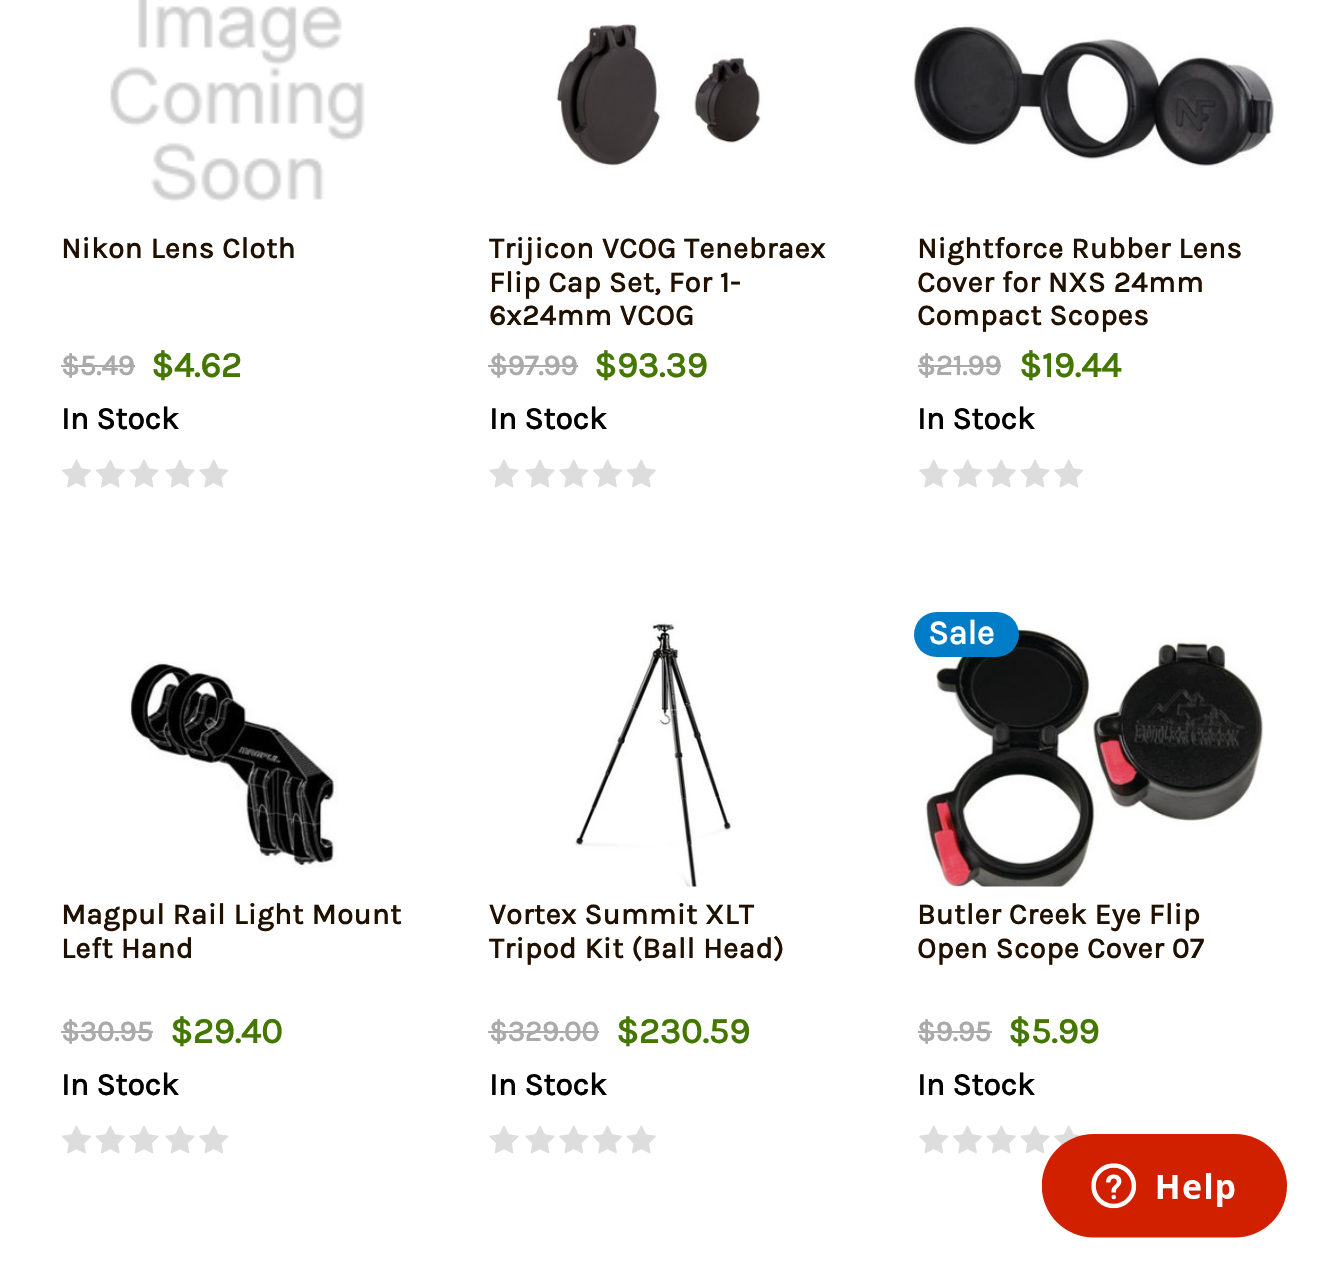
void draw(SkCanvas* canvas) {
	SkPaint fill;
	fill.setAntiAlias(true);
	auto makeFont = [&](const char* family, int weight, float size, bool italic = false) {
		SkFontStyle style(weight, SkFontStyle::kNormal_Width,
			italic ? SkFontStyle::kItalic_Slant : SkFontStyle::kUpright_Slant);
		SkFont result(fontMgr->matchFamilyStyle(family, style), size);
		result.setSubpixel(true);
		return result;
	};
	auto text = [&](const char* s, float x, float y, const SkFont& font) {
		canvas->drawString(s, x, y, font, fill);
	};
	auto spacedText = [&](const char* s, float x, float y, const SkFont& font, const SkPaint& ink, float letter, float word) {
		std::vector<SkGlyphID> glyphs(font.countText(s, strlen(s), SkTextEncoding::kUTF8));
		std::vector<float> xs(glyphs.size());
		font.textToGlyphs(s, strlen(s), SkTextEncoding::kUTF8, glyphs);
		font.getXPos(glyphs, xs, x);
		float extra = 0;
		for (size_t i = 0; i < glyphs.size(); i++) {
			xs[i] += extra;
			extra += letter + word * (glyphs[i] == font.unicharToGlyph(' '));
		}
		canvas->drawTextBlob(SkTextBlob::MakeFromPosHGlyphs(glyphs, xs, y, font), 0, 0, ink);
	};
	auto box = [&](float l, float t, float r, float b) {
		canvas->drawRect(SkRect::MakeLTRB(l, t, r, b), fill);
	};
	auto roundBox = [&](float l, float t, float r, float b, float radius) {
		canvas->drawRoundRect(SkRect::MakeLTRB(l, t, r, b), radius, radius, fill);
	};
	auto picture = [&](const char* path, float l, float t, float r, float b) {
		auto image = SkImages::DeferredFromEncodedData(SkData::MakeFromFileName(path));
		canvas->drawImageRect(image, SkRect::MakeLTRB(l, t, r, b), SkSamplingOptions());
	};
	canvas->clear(0xFFFFFFFF);
	picture("image0.png", 110, 0, 365, 202);
	fill.setColor(0xFFAAAAAA);
	box(61, 365, 135, 367);
	picture("image1.png", 62, 459, 91, 488);
	picture("image2.png", 95, 459, 125, 488);
	picture("image3.png", 129, 459, 159, 488);
	picture("image3.png", 165, 459, 195, 488);
	picture("image4.png", 199, 459, 229, 488);
	picture("image5.png", 556, 23, 764, 168);
	box(488, 365, 578, 367);
	picture("image3.png", 489, 459, 519, 488);
	picture("image3.png", 525, 459, 555, 488);
	picture("image4.png", 559, 459, 589, 488);
	picture("image1.png", 593, 459, 622, 488);
	picture("image2.png", 626, 459, 656, 488);
	picture("image6.png", 913, 24, 1276, 168);
	box(918, 365, 1001, 367);
	picture("image4.png", 919, 459, 949, 488);
	picture("image1.png", 953, 459, 982, 488);
	picture("image2.png", 986, 459, 1016, 488);
	picture("image3.png", 1020, 459, 1050, 488);
	picture("image4.png", 1054, 459, 1084, 488);
	picture("image7.png", 129, 661, 338, 868);
	box(61, 1031, 153, 1033);
	picture("image1.png", 62, 1125, 91, 1154);
	picture("image2.png", 95, 1125, 125, 1154);
	picture("image3.png", 129, 1125, 159, 1154);
	picture("image3.png", 165, 1125, 195, 1154);
	picture("image4.png", 199, 1125, 229, 1154);
	picture("image8.png", 574, 620, 732, 887);
	box(488, 1031, 599, 1033);
	picture("image3.png", 489, 1125, 519, 1154);
	picture("image3.png", 525, 1125, 555, 1154);
	picture("image4.png", 559, 1125, 589, 1154);
	picture("image1.png", 593, 1125, 622, 1154);
	picture("image2.png", 626, 1125, 656, 1154);
	picture("image9.png", 924, 626, 1264, 887);
	fill.setColor(0xFF007DC6);
	roundBox(914, 612, 1019, 657, 22.5f);
	fill.setColor(0xFFAAAAAA);
	box(918, 1031, 992, 1033);
	picture("image4.png", 919, 1125, 949, 1154);
	picture("image1.png", 953, 1125, 982, 1154);
	picture("image2.png", 986, 1125, 1016, 1154);
	picture("image3.png", 1020, 1125, 1050, 1154);
	picture("image10.png", 1054, 1125, 1084, 1147);
	picture("image11.png", 1042, 1134, 1287, 1238);
	auto font1 = makeFont("Karla", 700, 29.25f);
	fill.setColor(0xFF201000);
	spacedText("Nikon Lens Cloth", 61, 258, font1, fill, 0.6f, 0);
	fill.setColor(0xFFAAAAAA);
	text("$5.49", 61, 375, font1);
	auto font2 = makeFont("Karla", 700, 36);
	fill.setColor(0xFF447700);
	text("$4.62", 151, 377, font2);
	auto font3 = makeFont("Karla", 700, 31.5f);
	fill.setColor(0xFF000000);
	text("In Stock", 61, 429, font3);
	fill.setColor(0xFF201000);
	spacedText("Trijicon VCOG Tenebraex", 489, 258, font1, fill, 0.6f, 0);
	spacedText("Flip Cap Set, For 1-", 489, 292, font1, fill, 0.6f, 0);
	spacedText("6x24mm VCOG", 489, 325, font1, fill, 0.6f, 0);
	fill.setColor(0xFFAAAAAA);
	text("$97.99", 489, 375, font1);
	fill.setColor(0xFF447700);
	text("$93.39", 594, 377, font2);
	fill.setColor(0xFF000000);
	text("In Stock", 489, 429, font3);
	fill.setColor(0xFF201000);
	spacedText("Nightforce Rubber Lens", 917, 258, font1, fill, 0.6f, 0);
	spacedText("Cover for NXS 24mm", 917, 292, font1, fill, 0.6f, 0);
	spacedText("Compact Scopes", 917, 325, font1, fill, 0.6f, 0);
	fill.setColor(0xFFAAAAAA);
	text("$21.99", 917, 375, font1);
	fill.setColor(0xFF447700);
	text("$19.44", 1019, 377, font2);
	fill.setColor(0xFF000000);
	text("In Stock", 917, 429, font3);
	fill.setColor(0xFF201000);
	spacedText("Magpul Rail Light Mount", 61, 924, font1, fill, 0.6f, 0);
	spacedText("Left Hand", 61, 958, font1, fill, 0.6f, 0);
	fill.setColor(0xFFAAAAAA);
	text("$30.95", 61, 1041, font1);
	fill.setColor(0xFF447700);
	text("$29.40", 170, 1043, font2);
	fill.setColor(0xFF000000);
	text("In Stock", 61, 1095, font3);
	fill.setColor(0xFF201000);
	spacedText("Vortex Summit XLT", 489, 924, font1, fill, 0.6f, 0);
	spacedText("Tripod Kit (Ball Head)", 489, 958, font1, fill, 0.6f, 0);
	fill.setColor(0xFFAAAAAA);
	text("$329.00", 489, 1041, font1);
	fill.setColor(0xFF447700);
	text("$230.59", 616, 1043, font2);
	fill.setColor(0xFF000000);
	text("In Stock", 489, 1095, font3);
	auto font4 = makeFont("Karla", 700, 34);
	fill.setColor(0xFFFFFFFF);
	text("Sale", 928, 644, font4);
	fill.setColor(0xFF201000);
	spacedText("Butler Creek Eye Flip", 917, 924, font1, fill, 0.6f, 0);
	spacedText("Open Scope Cover 07", 917, 958, font1, fill, 0.6f, 0);
	fill.setColor(0xFFAAAAAA);
	text("$9.95", 917, 1041, font1);
	fill.setColor(0xFF447700);
	text("$5.99", 1008, 1043, font2);
	fill.setColor(0xFF000000);
	text("In Stock", 917, 1095, font3);
}
